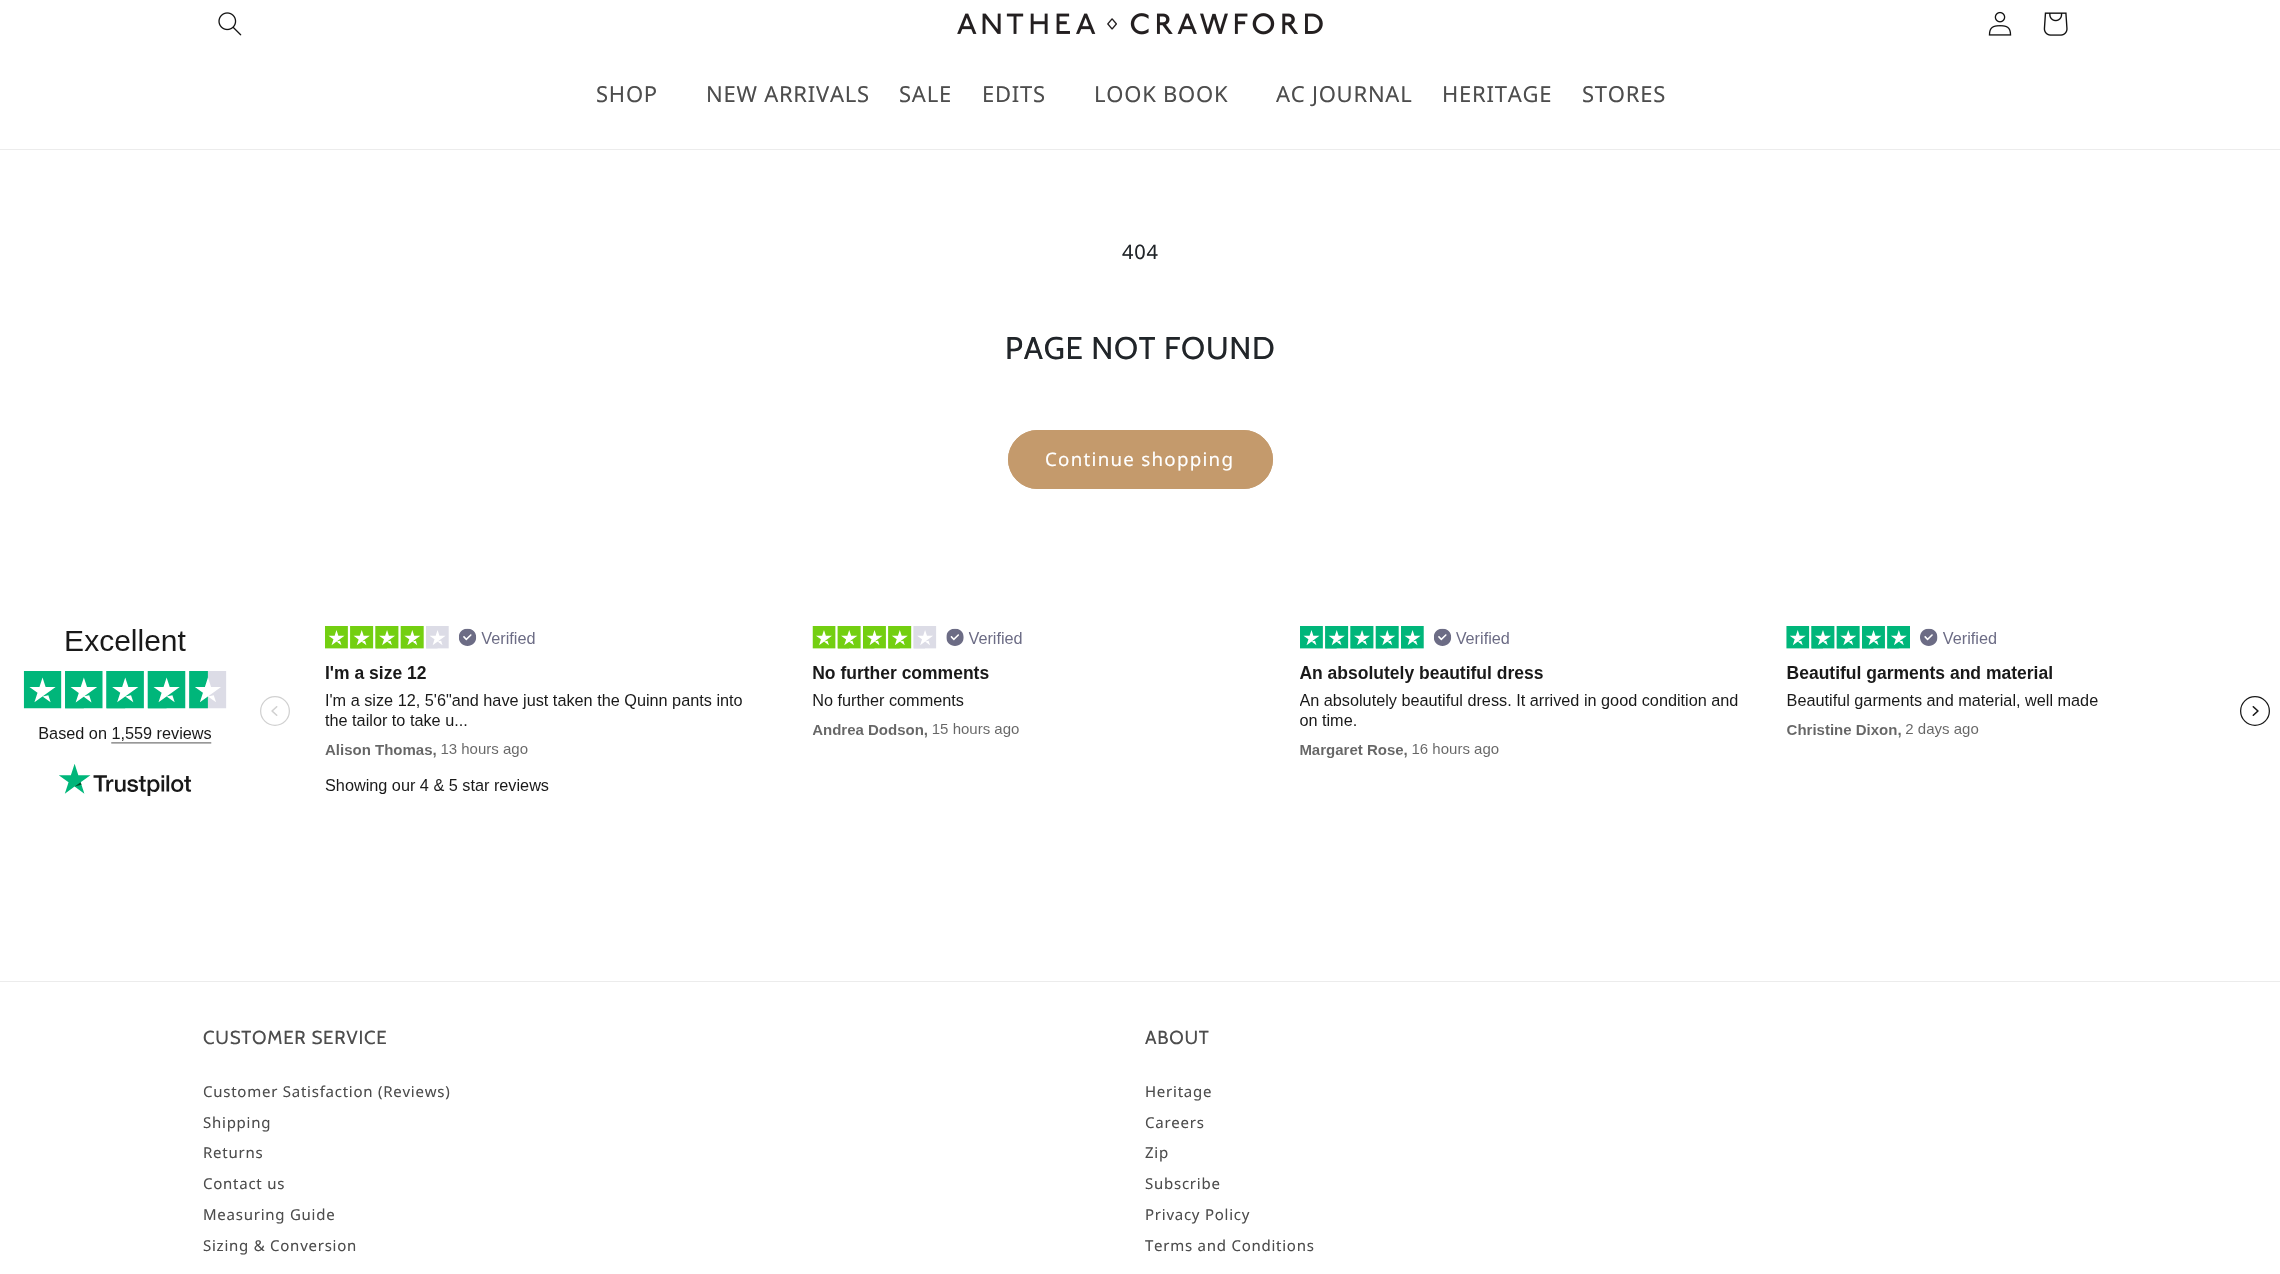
void draw(SkCanvas* canvas) {
	SkPaint fill;
	fill.setAntiAlias(true);
	auto makeFont = [&](const char* family, int weight, float size, bool italic = false) {
		SkFontStyle style(weight, SkFontStyle::kNormal_Width,
			italic ? SkFontStyle::kItalic_Slant : SkFontStyle::kUpright_Slant);
		SkFont result(fontMgr->matchFamilyStyle(family, style), size);
		result.setSubpixel(true);
		return result;
	};
	auto spacedText = [&](const char* s, float x, float y, const SkFont& font, const SkPaint& ink, float letter, float word) {
		std::vector<SkGlyphID> glyphs(font.countText(s, strlen(s), SkTextEncoding::kUTF8));
		std::vector<float> xs(glyphs.size());
		font.textToGlyphs(s, strlen(s), SkTextEncoding::kUTF8, glyphs);
		font.getXPos(glyphs, xs, x);
		float extra = 0;
		for (size_t i = 0; i < glyphs.size(); i++) {
			xs[i] += extra;
			extra += letter + word * (glyphs[i] == font.unicharToGlyph(' '));
		}
		canvas->drawTextBlob(SkTextBlob::MakeFromPosHGlyphs(glyphs, xs, y, font), 0, 0, ink);
	};
	auto box = [&](float l, float t, float r, float b) {
		canvas->drawRect(SkRect::MakeLTRB(l, t, r, b), fill);
	};
	auto roundBox = [&](float l, float t, float r, float b, float radius) {
		canvas->drawRoundRect(SkRect::MakeLTRB(l, t, r, b), radius, radius, fill);
	};
	auto picture = [&](const char* path, float l, float t, float r, float b) {
		auto image = SkImages::DeferredFromEncodedData(SkData::MakeFromFileName(path));
		canvas->drawImageRect(image, SkRect::MakeLTRB(l, t, r, b), SkSamplingOptions());
	};
	canvas->clear(0xFFFFFFFF);
	fill.setColor(0xFFECECEC);
	box(0, 149, 2280, 150);
	picture("image0.png", 218, 12, 242, 36);
	picture("image1.png", 957, 13, 1323, 35);
	picture("image2.png", 1988, 11, 2012, 36);
	picture("image3.png", 2043, 12, 2068, 36);
	fill.setColor(0xFFC49A6C);
	roundBox(1008, 430, 1273, 489, 29.5f);
	fill.setStyle(SkPaint::kStroke_Style);
	fill.setStrokeWidth(1);
	canvas->drawRoundRect(SkRect::MakeLTRB(1008.5f, 430.5f, 1272.5f, 488.5f), 29, 29, fill);
	picture("image4.png", 23, 626, 2270, 796);
	fill.setStyle(SkPaint::kFill_Style);
	fill.setColor(0xFFECECEC);
	box(0, 981, 2280, 982);
	auto font1 = makeFont("Noto Sans", 400, 22);
	fill.setColor(0xFF4D4D4D);
	spacedText("SHOP", 596, 102, font1, fill, 0.75f, 0);
	spacedText("NEW ARRIVALS", 706, 102, font1, fill, 0.75f, 0);
	spacedText("SALE", 899, 102, font1, fill, 0.75f, 0);
	spacedText("EDITS", 982, 102, font1, fill, 0.75f, 0);
	spacedText("LOOK BOOK", 1094, 102, font1, fill, 0.75f, 0);
	spacedText("AC JOURNAL", 1276, 102, font1, fill, 0.75f, 0);
	spacedText("HERITAGE", 1442, 102, font1, fill, 0.75f, 0);
	spacedText("STORES", 1582, 102, font1, fill, 0.75f, 0);
	auto font2 = makeFont("Noto Sans", 400, 20);
	fill.setColor(0xFF212529);
	spacedText("404", 1122, 259, font2, fill, 0.75f, 0);
	auto font3 = makeFont("Cabin", 400, 31.25f);
	spacedText("PAGE NOT FOUND", 1005, 359, font3, fill, 0.75f, 0);
	auto font4 = makeFont("Noto Sans", 400, 18.75f);
	fill.setColor(0xFFFFFFFF);
	spacedText("Continue shopping", 1045, 466, font4, fill, 1.25f, 0);
	auto font5 = makeFont("Cabin", 400, 18.75f);
	fill.setColor(0xFF4D4D4D);
	spacedText("CUSTOMER SERVICE", 203, 1044, font5, fill, 0.75f, 0);
	auto font6 = makeFont("Noto Sans", 400, 15);
	spacedText("Customer Satisfaction (Reviews)", 203, 1097, font6, fill, 0.75f, 0);
	spacedText("Shipping", 203, 1128, font6, fill, 0.75f, 0);
	spacedText("Returns", 203, 1158, font6, fill, 0.75f, 0);
	spacedText("Contact us", 203, 1189, font6, fill, 0.75f, 0);
	spacedText("Measuring Guide", 203, 1220, font6, fill, 0.75f, 0);
	spacedText("Sizing & Conversion", 203, 1251, font6, fill, 0.75f, 0);
	spacedText("ABOUT", 1145, 1044, font5, fill, 0.75f, 0);
	spacedText("Heritage", 1145, 1097, font6, fill, 0.75f, 0);
	spacedText("Careers", 1145, 1128, font6, fill, 0.75f, 0);
	spacedText("Zip", 1145, 1158, font6, fill, 0.75f, 0);
	spacedText("Subscribe", 1145, 1189, font6, fill, 0.75f, 0);
	spacedText("Privacy Policy", 1145, 1220, font6, fill, 0.75f, 0);
	spacedText("Terms and Conditions", 1145, 1251, font6, fill, 0.75f, 0);
}
